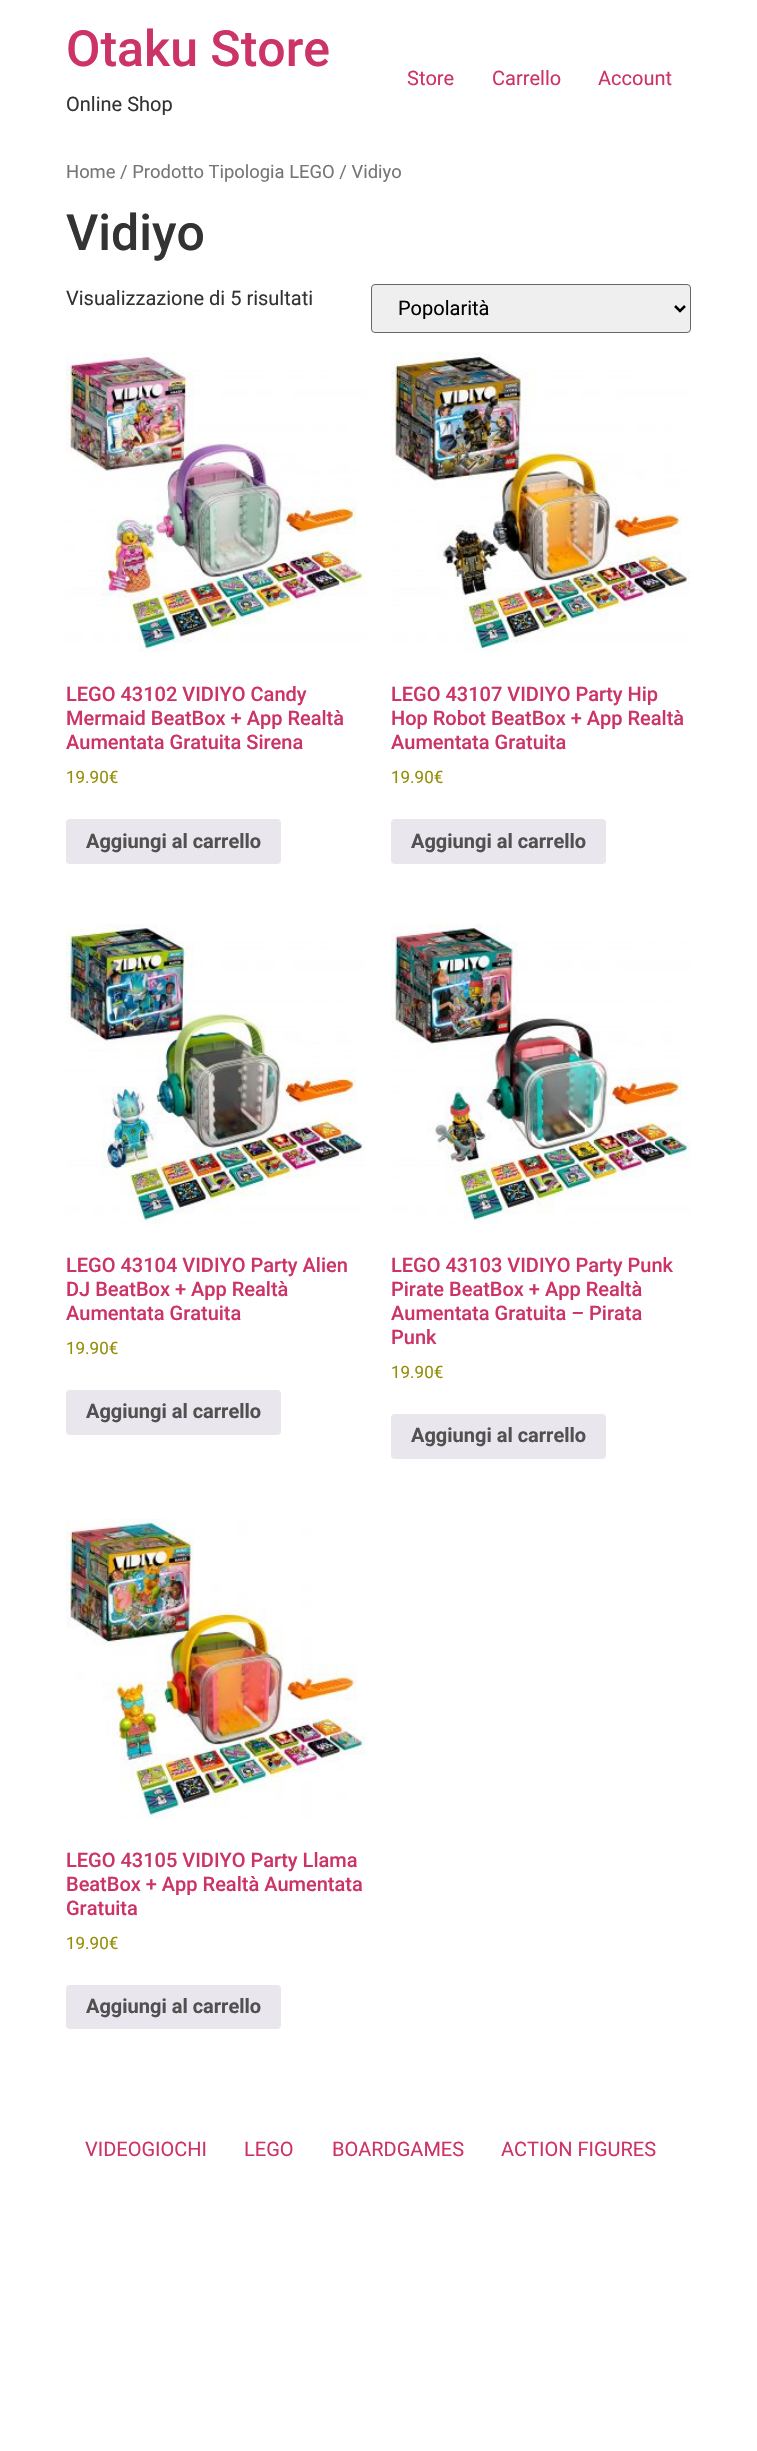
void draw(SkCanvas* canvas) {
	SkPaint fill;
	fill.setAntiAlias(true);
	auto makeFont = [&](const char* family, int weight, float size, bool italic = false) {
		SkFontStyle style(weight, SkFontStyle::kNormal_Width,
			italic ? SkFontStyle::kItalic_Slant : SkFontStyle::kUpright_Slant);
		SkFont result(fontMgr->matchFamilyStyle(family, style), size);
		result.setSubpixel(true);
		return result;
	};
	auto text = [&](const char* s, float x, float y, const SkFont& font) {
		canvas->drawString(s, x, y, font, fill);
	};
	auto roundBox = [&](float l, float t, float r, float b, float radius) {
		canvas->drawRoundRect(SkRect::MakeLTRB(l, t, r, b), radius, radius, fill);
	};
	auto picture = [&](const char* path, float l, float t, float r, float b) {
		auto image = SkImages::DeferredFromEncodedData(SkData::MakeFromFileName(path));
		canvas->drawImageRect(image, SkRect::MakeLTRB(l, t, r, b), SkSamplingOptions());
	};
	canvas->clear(0xFFFFFFFF);
	fill.setColor(0xFFEFEFEF);
	canvas->drawRoundRect(SkRect::MakeLTRB(371.5f, 284.5f, 690.5f, 332.5f), 3.5f, 3.5f, fill);
	fill.setStyle(SkPaint::kStroke_Style);
	fill.setStrokeWidth(1);
	fill.setColor(0xFF666666);
	canvas->drawRoundRect(SkRect::MakeLTRB(371.5f, 284.5f, 690.5f, 332.5f), 3.5f, 3.5f, fill);
	fill.setStrokeWidth(2.5f);
	fill.setColor(0xFF000000);
	canvas->drawPath(SkPathBuilder().moveTo(675, 306).lineTo(680, 311).lineTo(685, 306).detach(), fill);
	picture("image0.png", 66, 352, 366, 652);
	fill.setStyle(SkPaint::kFill_Style);
	fill.setColor(0xFFE9E6ED);
	roundBox(66, 819, 281, 864, 4);
	picture("image1.png", 391, 352, 690, 653);
	roundBox(391, 819, 606, 864, 4);
	picture("image2.png", 66, 924, 365, 1224);
	roundBox(66, 1390, 281, 1435, 4);
	picture("image3.png", 391, 923, 691, 1224);
	roundBox(391, 1414, 606, 1459, 4);
	picture("image4.png", 66, 1519, 366, 1819);
	roundBox(66, 1985, 281, 2029, 4);
	auto font1 = makeFont("Roboto", 500, 50);
	fill.setColor(0xFFCC3366);
	text("Otaku Store", 66, 66, font1);
	auto font2 = makeFont("Roboto", 400, 20);
	fill.setColor(0xFF333333);
	text("Online Shop", 66, 111, font2);
	fill.setColor(0xFFCC3366);
	text("Store", 407, 85, font2);
	text("Carrello", 492, 85, font2);
	text("Account", 598, 85, font2);
	auto font3 = makeFont("Roboto", 400, 18.4f);
	fill.setColor(0xFF767676);
	text("Home / Prodotto Tipologia LEGO / Vidiyo", 66, 178, font3);
	fill.setColor(0xFF333333);
	text("Vidiyo", 66, 250, font1);
	text("Visualizzazione di 5 risultati", 66, 305, font2);
	fill.setColor(0xFF000000);
	text("Popolarità", 398, 315, font2);
	auto font4 = makeFont("Roboto", 500, 20);
	fill.setColor(0xFFCC3366);
	text("LEGO 43102 VIDIYO Candy", 66, 701, font4);
	text("Mermaid BeatBox + App Realtà", 66, 725, font4);
	text("Aumentata Gratuita Sirena", 66, 749, font4);
	auto font5 = makeFont("Roboto", 400, 17);
	fill.setColor(0xFF958E09);
	text("19.90€", 66, 783, font5);
	auto font6 = makeFont("Roboto", 700, 20);
	fill.setColor(0xFF515151);
	text("Aggiungi al carrello", 86, 848, font6);
	fill.setColor(0xFFCC3366);
	text("LEGO 43107 VIDIYO Party Hip", 391, 701, font4);
	text("Hop Robot BeatBox + App Realtà", 391, 725, font4);
	text("Aumentata Gratuita", 391, 749, font4);
	fill.setColor(0xFF958E09);
	text("19.90€", 391, 783, font5);
	fill.setColor(0xFF515151);
	text("Aggiungi al carrello", 411, 848, font6);
	fill.setColor(0xFFCC3366);
	text("LEGO 43104 VIDIYO Party Alien", 66, 1272, font4);
	text("DJ BeatBox + App Realtà", 66, 1296, font4);
	text("Aumentata Gratuita", 66, 1320, font4);
	fill.setColor(0xFF958E09);
	text("19.90€", 66, 1354, font5);
	fill.setColor(0xFF515151);
	text("Aggiungi al carrello", 86, 1418, font6);
	fill.setColor(0xFFCC3366);
	text("LEGO 43103 VIDIYO Party Punk", 391, 1272, font4);
	text("Pirate BeatBox + App Realtà", 391, 1296, font4);
	text("Aumentata Gratuita – Pirata", 391, 1320, font4);
	text("Punk", 391, 1344, font4);
	fill.setColor(0xFF958E09);
	text("19.90€", 391, 1378, font5);
	fill.setColor(0xFF515151);
	text("Aggiungi al carrello", 411, 1442, font6);
	fill.setColor(0xFFCC3366);
	text("LEGO 43105 VIDIYO Party Llama", 66, 1867, font4);
	text("BeatBox + App Realtà Aumentata", 66, 1891, font4);
	text("Gratuita", 66, 1915, font4);
	fill.setColor(0xFF958E09);
	text("19.90€", 66, 1949, font5);
	fill.setColor(0xFF515151);
	text("Aggiungi al carrello", 86, 2013, font6);
	fill.setColor(0xFFCC3366);
	text("VIDEOGIOCHI", 85, 2156, font2);
	text("LEGO", 244, 2156, font2);
	text("BOARDGAMES", 332, 2156, font2);
	text("ACTION FIGURES", 501, 2156, font2);
}
